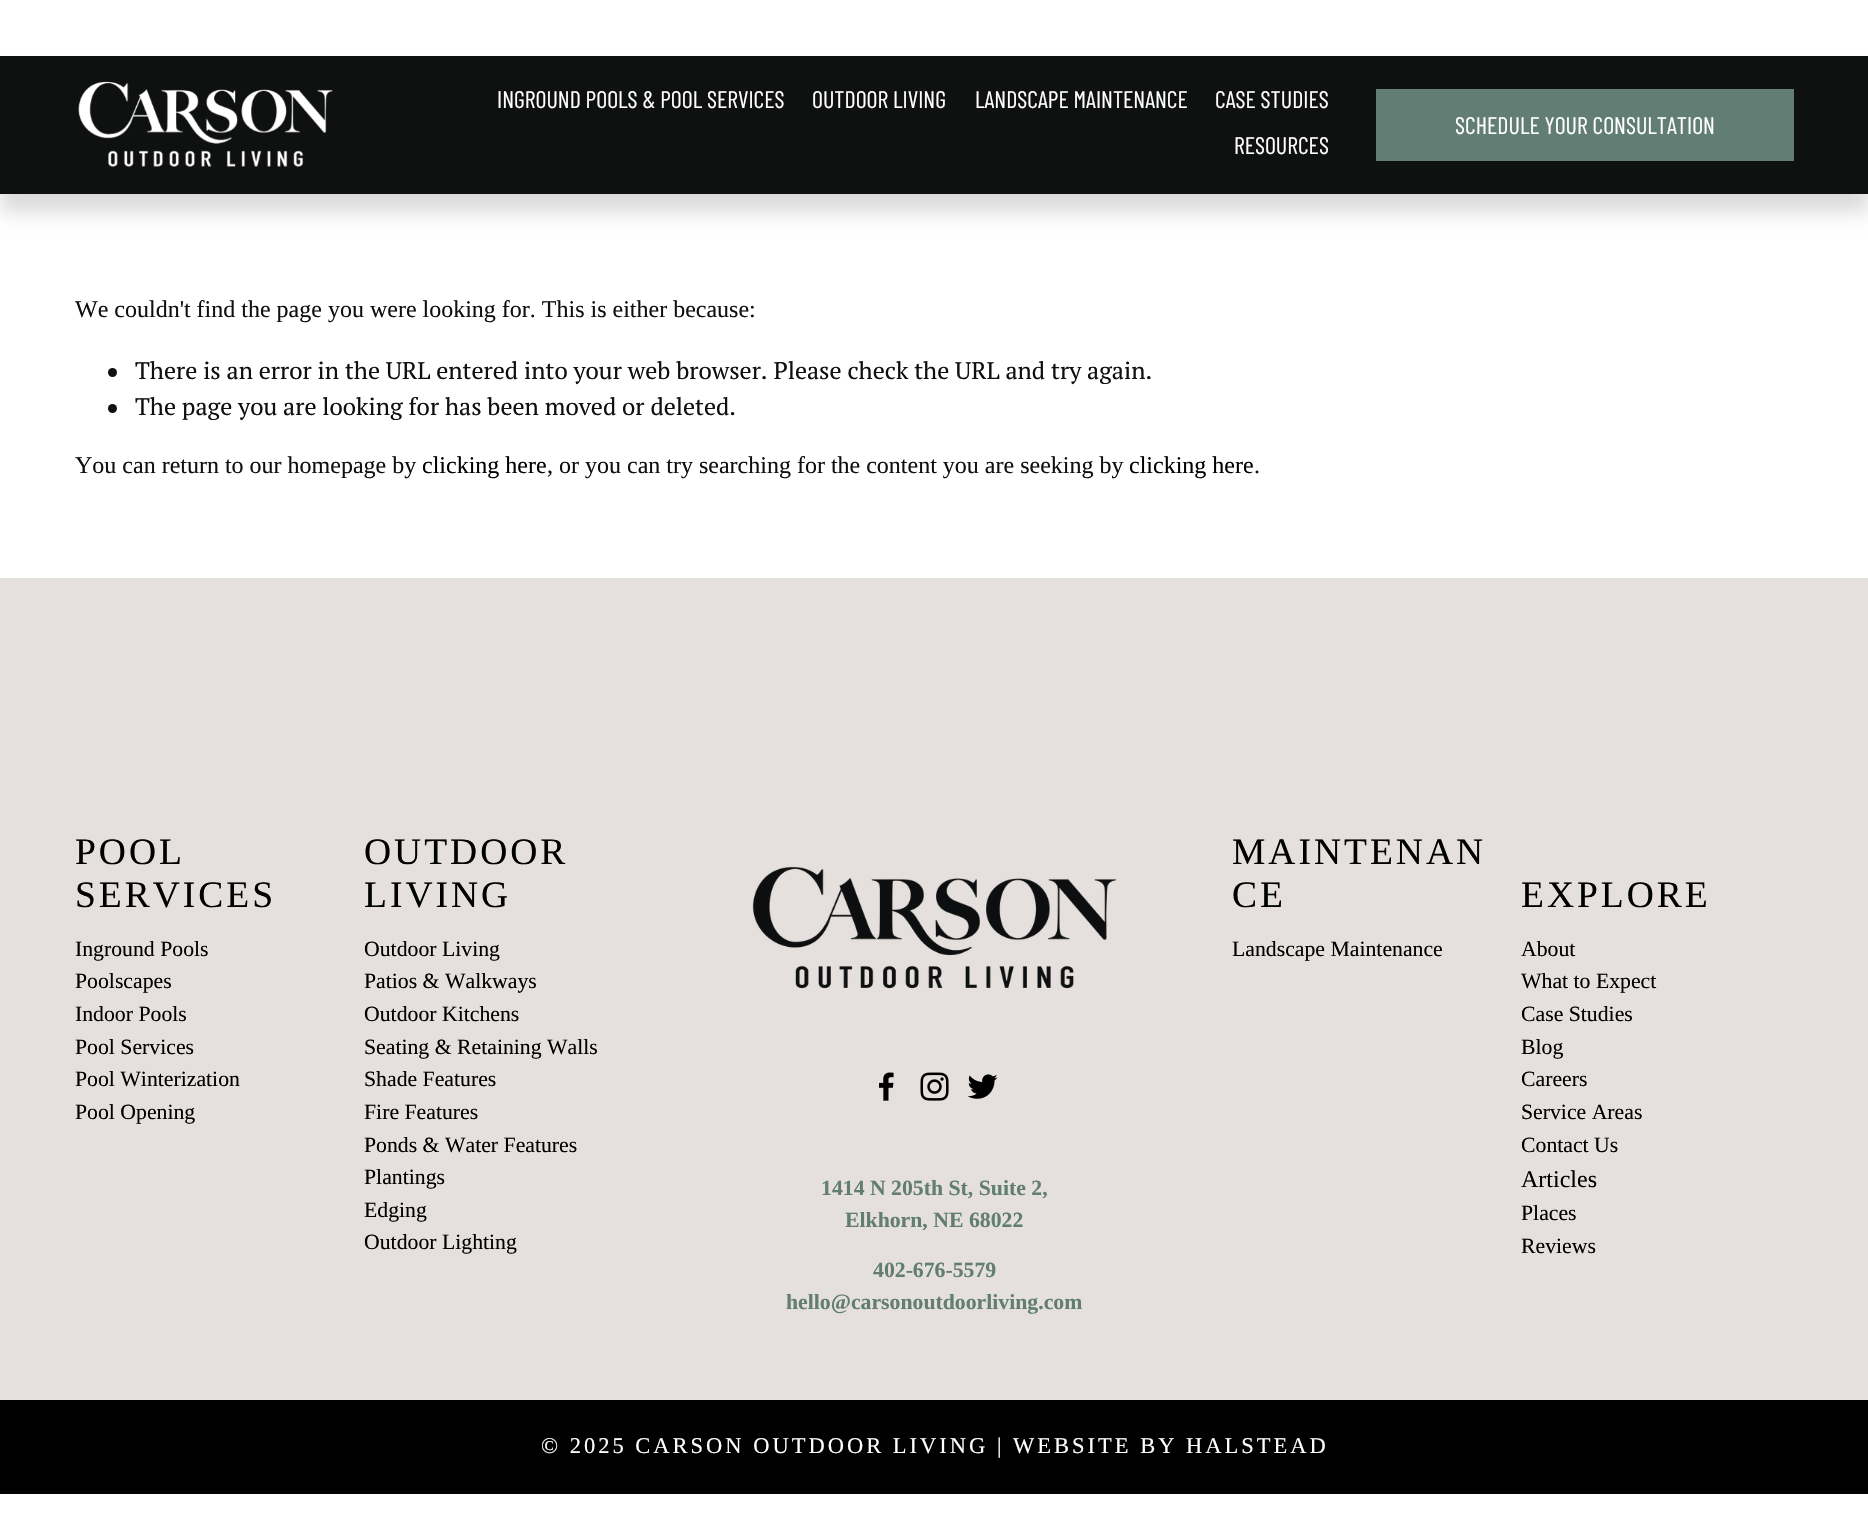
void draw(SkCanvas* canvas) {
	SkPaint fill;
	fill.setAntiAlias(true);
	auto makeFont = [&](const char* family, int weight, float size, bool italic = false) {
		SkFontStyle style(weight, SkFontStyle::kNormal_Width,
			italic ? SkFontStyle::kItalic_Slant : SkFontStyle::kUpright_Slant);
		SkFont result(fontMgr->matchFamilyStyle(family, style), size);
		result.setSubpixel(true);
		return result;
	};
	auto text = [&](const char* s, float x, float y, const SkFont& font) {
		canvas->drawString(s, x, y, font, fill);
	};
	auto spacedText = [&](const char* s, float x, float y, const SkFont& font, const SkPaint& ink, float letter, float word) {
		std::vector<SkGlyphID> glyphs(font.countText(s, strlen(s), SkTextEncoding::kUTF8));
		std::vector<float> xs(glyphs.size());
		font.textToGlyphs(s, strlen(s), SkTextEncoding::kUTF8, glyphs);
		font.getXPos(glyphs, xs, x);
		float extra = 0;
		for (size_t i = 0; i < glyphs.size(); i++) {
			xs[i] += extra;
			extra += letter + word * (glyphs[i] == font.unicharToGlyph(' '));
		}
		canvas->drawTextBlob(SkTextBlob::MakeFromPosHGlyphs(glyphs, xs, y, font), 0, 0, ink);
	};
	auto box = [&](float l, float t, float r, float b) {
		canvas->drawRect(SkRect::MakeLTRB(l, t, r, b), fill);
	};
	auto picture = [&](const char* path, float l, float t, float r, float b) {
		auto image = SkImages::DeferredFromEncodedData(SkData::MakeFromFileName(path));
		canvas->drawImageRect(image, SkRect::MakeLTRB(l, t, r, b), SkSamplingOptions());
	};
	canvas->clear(0xFFFFFFFF);
	fill.setColor(0xFFDBDBDB);
	fill.setMaskFilter(SkMaskFilter::MakeBlur(kNormal_SkBlurStyle, 9));
	canvas->drawRect(SkRect::MakeLTRB(0, 74, 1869, 212), fill);
	fill.setMaskFilter(nullptr);
	fill.setColor(0xFF0F1010);
	box(0, 56, 1868, 194);
	picture("image0.png", 78, 81, 333, 167);
	fill.setColor(0xFF617D74);
	box(1376, 89, 1794, 161);
	fill.setColor(0xFF0F1010);
	canvas->drawCircle(112.5f, 372.5f, 4.5f, fill);
	canvas->drawCircle(112.5f, 408.5f, 4.5f, fill);
	fill.setColor(0xFFE5E0DD);
	box(0, 578, 1868, 1400);
	picture("image1.png", 752, 866, 1117, 989);
	picture("image2.png", 879, 1072, 894, 1101);
	picture("image3.png", 920, 1072, 949, 1101);
	picture("image4.png", 968, 1074, 998, 1099);
	fill.setColor(0xFF000000);
	box(0, 1400, 1868, 1494);
	auto font1 = makeFont("Barlow Condensed", 400, 24);
	fill.setColor(0xFFFFFFFF);
	text("INGROUND POOLS & POOL SERVICES", 497, 108, font1);
	text("OUTDOOR LIVING", 812, 108, font1);
	text("LANDSCAPE MAINTENANCE", 975, 108, font1);
	text("CASE STUDIES", 1215, 108, font1);
	text("RESOURCES", 1234, 154, font1);
	text("SCHEDULE YOUR CONSULTATION", 1455, 134, font1);
	auto font2 = makeFont("Liberation Serif", 400, 24);
	fill.setColor(0xFF0F1010);
	text("We couldn't find the page you were looking for. This is either because:", 75, 317, font2);
	auto font3 = makeFont("PT Serif", 400, 24);
	text("There is an error in the URL entered into your web browser. Please check the URL and try again.", 135, 379, font3);
	text("The page you are looking for has been moved or deleted.", 135, 415, font3);
	text("You can return to our homepage by", 75, 473, font2);
	fill.setColor(0xFF000000);
	text("clicking here", 422, 473, font2);
	fill.setColor(0xFF0F1010);
	text(", or you can try searching for the content you are seeking by", 547, 473, font2);
	fill.setColor(0xFF000000);
	text("clicking here", 1129, 473, font2);
	fill.setColor(0xFF0F1010);
	text(".", 1254, 473, font2);
	auto font4 = makeFont("Liberation Serif", 400, 37.5f);
	fill.setColor(0xFF000000);
	spacedText("POOL", 75, 864, font4, fill, 3, 0);
	spacedText("SERVICES", 75, 907, font4, fill, 3, 0);
	spacedText("OUTDOOR", 364, 864, font4, fill, 3, 0);
	spacedText("LIVING", 364, 907, font4, fill, 3, 0);
	spacedText("MAINTENAN", 1232, 864, font4, fill, 3, 0);
	spacedText("CE", 1232, 907, font4, fill, 3, 0);
	spacedText("EXPLORE", 1521, 907, font4, fill, 3, 0);
	auto font5 = makeFont("Liberation Serif", 400, 21.75f);
	text("Inground Pools", 75, 956, font5);
	text("Poolscapes", 75, 988, font5);
	text("Indoor Pools", 75, 1021, font5);
	text("Pool Services", 75, 1054, font5);
	text("Pool Winterization", 75, 1086, font5);
	text("Pool Opening", 75, 1119, font5);
	text("Outdoor Living", 364, 956, font5);
	text("Patios & Walkways", 364, 988, font5);
	text("Outdoor Kitchens", 364, 1021, font5);
	text("Seating & Retaining Walls", 364, 1054, font5);
	text("Shade Features", 364, 1086, font5);
	text("Fire Features", 364, 1119, font5);
	text("Ponds & Water Features", 364, 1152, font5);
	text("Plantings", 364, 1184, font5);
	text("Edging", 364, 1217, font5);
	text("Outdoor Lighting", 364, 1249, font5);
	text("Landscape Maintenance", 1232, 956, font5);
	text("About", 1521, 956, font5);
	text("What to Expect", 1521, 988, font5);
	text("Case Studies", 1521, 1021, font5);
	text("Blog", 1521, 1054, font5);
	text("Careers", 1521, 1086, font5);
	text("Service Areas", 1521, 1119, font5);
	text("Contact Us", 1521, 1152, font5);
	text("Articles", 1521, 1187, font2);
	text("Places", 1521, 1220, font5);
	text("Reviews", 1521, 1253, font5);
	auto font6 = makeFont("Liberation Serif", 700, 21.75f);
	fill.setColor(0xFF617D74);
	text("1414 N 205th St, Suite 2,", 821, 1195, font6);
	text("Elkhorn, NE 68022", 845, 1227, font6);
	text("402-676-5579", 873, 1277, font6);
	text("hello@carsonoutdoorliving.com", 786, 1309, font6);
	auto font7 = makeFont("Liberation Serif", 400, 22.5f);
	fill.setColor(0xFFFFFFFF);
	spacedText("© 2025 CARSON OUTDOOR LIVING | WEBSITE BY HALSTEAD", 541, 1453, font7, fill, 3, 0);
}
